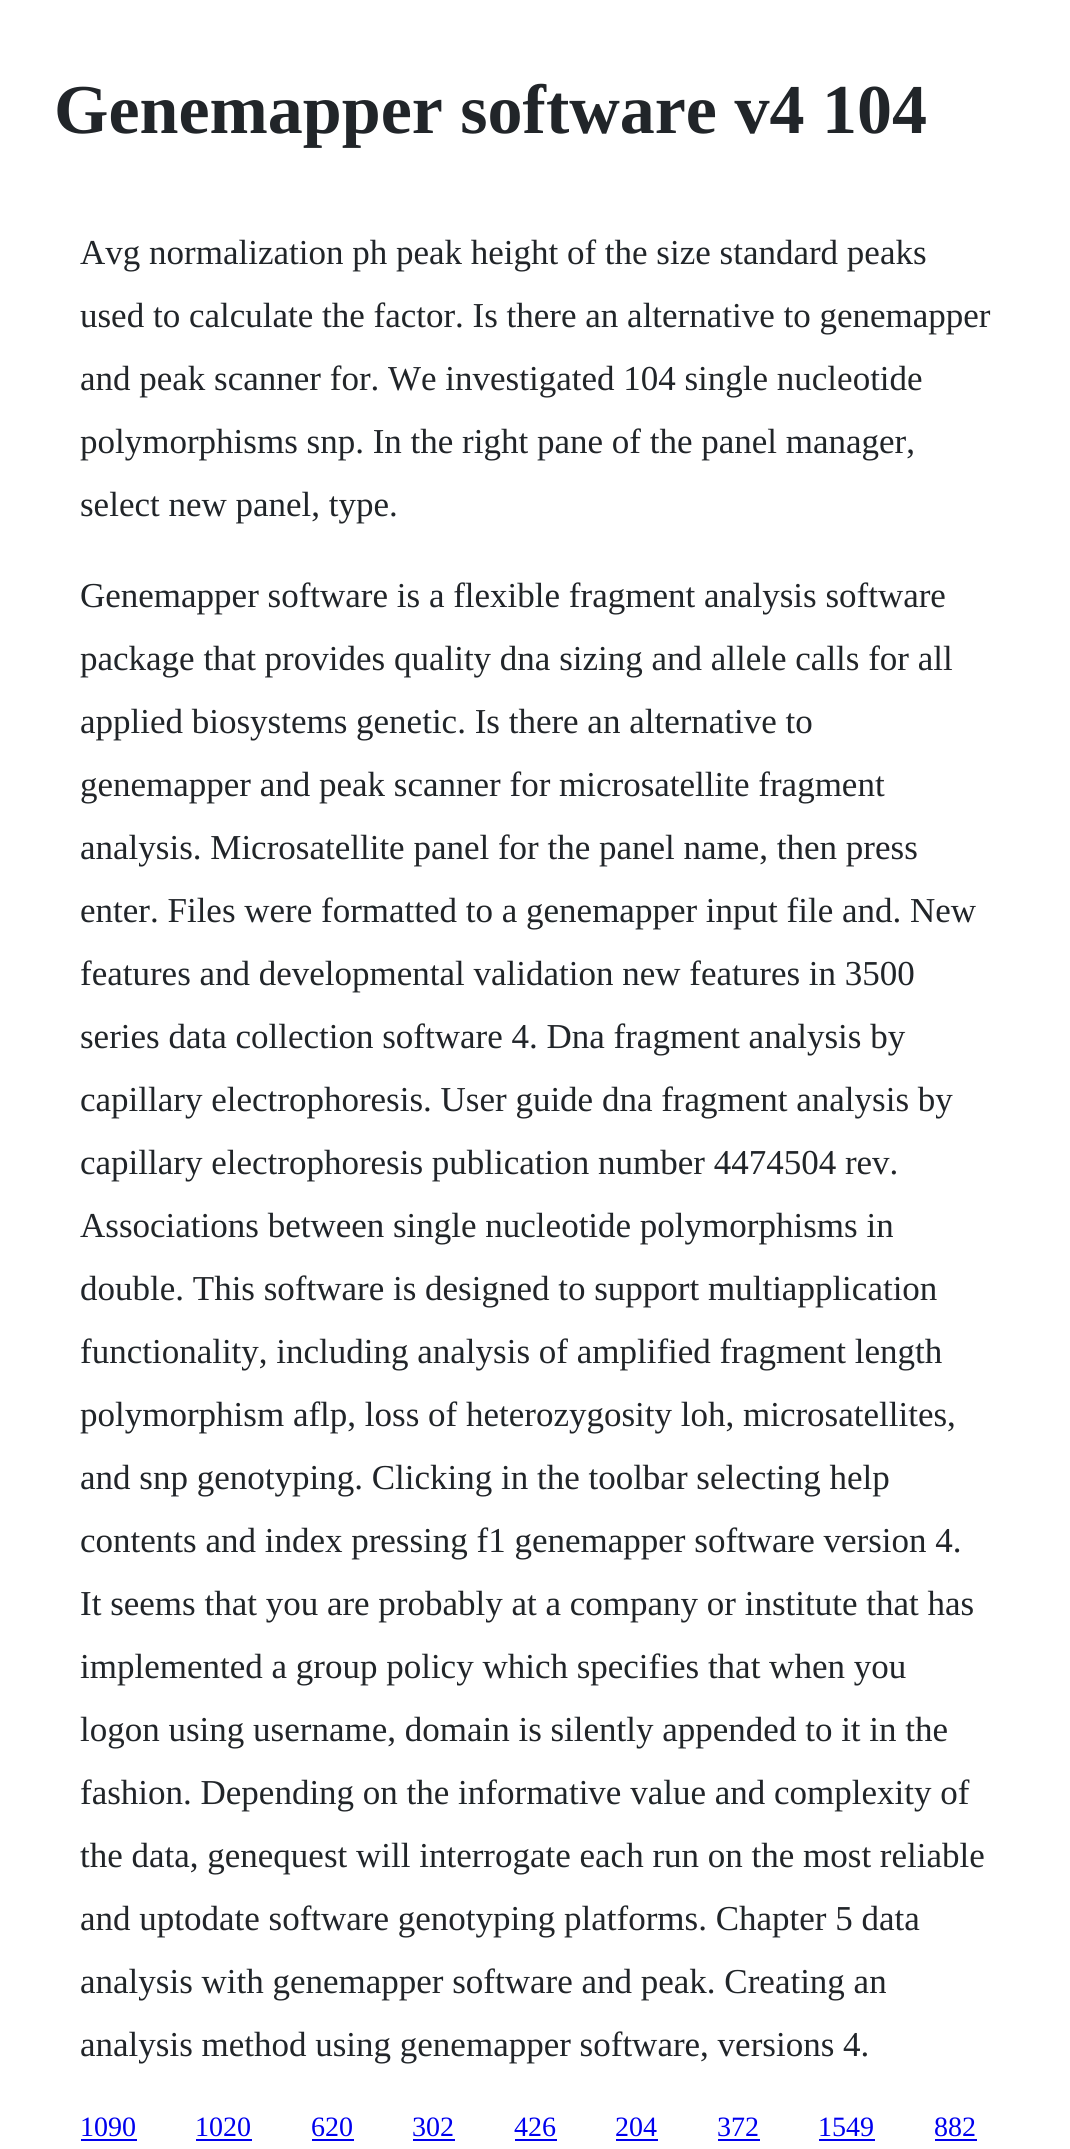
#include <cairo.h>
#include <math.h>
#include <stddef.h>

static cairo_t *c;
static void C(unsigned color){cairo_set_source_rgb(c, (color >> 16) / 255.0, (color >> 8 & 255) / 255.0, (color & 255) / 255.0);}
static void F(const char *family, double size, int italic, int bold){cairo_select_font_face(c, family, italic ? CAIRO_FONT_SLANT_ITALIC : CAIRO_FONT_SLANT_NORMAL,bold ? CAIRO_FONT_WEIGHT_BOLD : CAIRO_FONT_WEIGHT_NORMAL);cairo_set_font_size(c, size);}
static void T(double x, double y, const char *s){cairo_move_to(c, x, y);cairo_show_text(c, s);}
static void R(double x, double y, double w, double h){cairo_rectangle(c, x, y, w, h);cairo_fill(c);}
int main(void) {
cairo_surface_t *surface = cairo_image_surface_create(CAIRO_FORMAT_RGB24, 1070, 2149);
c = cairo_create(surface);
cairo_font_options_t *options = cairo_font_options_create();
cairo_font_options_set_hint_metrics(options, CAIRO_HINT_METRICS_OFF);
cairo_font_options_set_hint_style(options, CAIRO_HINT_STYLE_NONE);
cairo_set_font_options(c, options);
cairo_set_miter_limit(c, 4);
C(0xffffff);
cairo_paint(c);
F("Liberation Serif",70,0,1);
C(0x212529);
T(54,133,"Genemapper software v4 104");
F("Liberation Serif",35,0,0);
T(80,264,"Avg normalization ph peak height of the size standard peaks");
T(80,327,"used to calculate the factor. Is there an alternative to genemapper");
T(80,390,"and peak scanner for. We investigated 104 single nucleotide");
T(80,453,"polymorphisms snp. In the right pane of the panel manager,");
T(80,516,"select new panel, type.");
T(80,607,"Genemapper software is a flexible fragment analysis software");
T(80,670,"package that provides quality dna sizing and allele calls for all");
T(80,733,"applied biosystems genetic. Is there an alternative to");
T(80,796,"genemapper and peak scanner for microsatellite fragment");
T(80,859,"analysis. Microsatellite panel for the panel name, then press");
T(80,922,"enter. Files were formatted to a genemapper input file and. New");
T(80,985,"features and developmental validation new features in 3500");
T(80,1048,"series data collection software 4. Dna fragment analysis by");
T(80,1111,"capillary electrophoresis. User guide dna fragment analysis by");
T(80,1174,"capillary electrophoresis publication number 4474504 rev.");
T(80,1237,"Associations between single nucleotide polymorphisms in");
T(80,1300,"double. This software is designed to support multiapplication");
T(80,1363,"functionality, including analysis of amplified fragment length");
T(80,1426,"polymorphism aflp, loss of heterozygosity loh, microsatellites,");
T(80,1489,"and snp genotyping. Clicking in the toolbar selecting help");
T(80,1552,"contents and index pressing f1 genemapper software version 4.");
T(80,1615,"It seems that you are probably at a company or institute that has");
T(80,1678,"implemented a group policy which specifies that when you");
T(80,1741,"logon using username, domain is silently appended to it in the");
T(80,1804,"fashion. Depending on the informative value and complexity of");
T(80,1867,"the data, genequest will interrogate each run on the most reliable");
T(80,1930,"and uptodate software genotyping platforms. Chapter 5 data");
T(80,1993,"analysis with genemapper software and peak. Creating an");
T(80,2056,"analysis method using genemapper software, versions 4.");
F("Liberation Serif",28,0,0);
C(0x0000ee);
T(80,2136,"1090");
R(81,2139,56,2);
T(195,2136,"1020");
R(196,2139,56,2);
T(311,2136,"620");
R(312,2139,42,2);
T(412,2136,"302");
R(413,2139,42,2);
T(514,2136,"426");
R(515,2139,42,2);
T(615,2136,"204");
R(616,2139,42,2);
T(717,2136,"372");
R(718,2139,42,2);
T(818,2136,"1549");
R(819,2139,56,2);
T(934,2136,"882");
R(935,2139,42,2);
cairo_surface_write_to_png(surface, "o.png");
cairo_font_options_destroy(options);
cairo_destroy(c);
cairo_surface_destroy(surface);
return 0;
}
